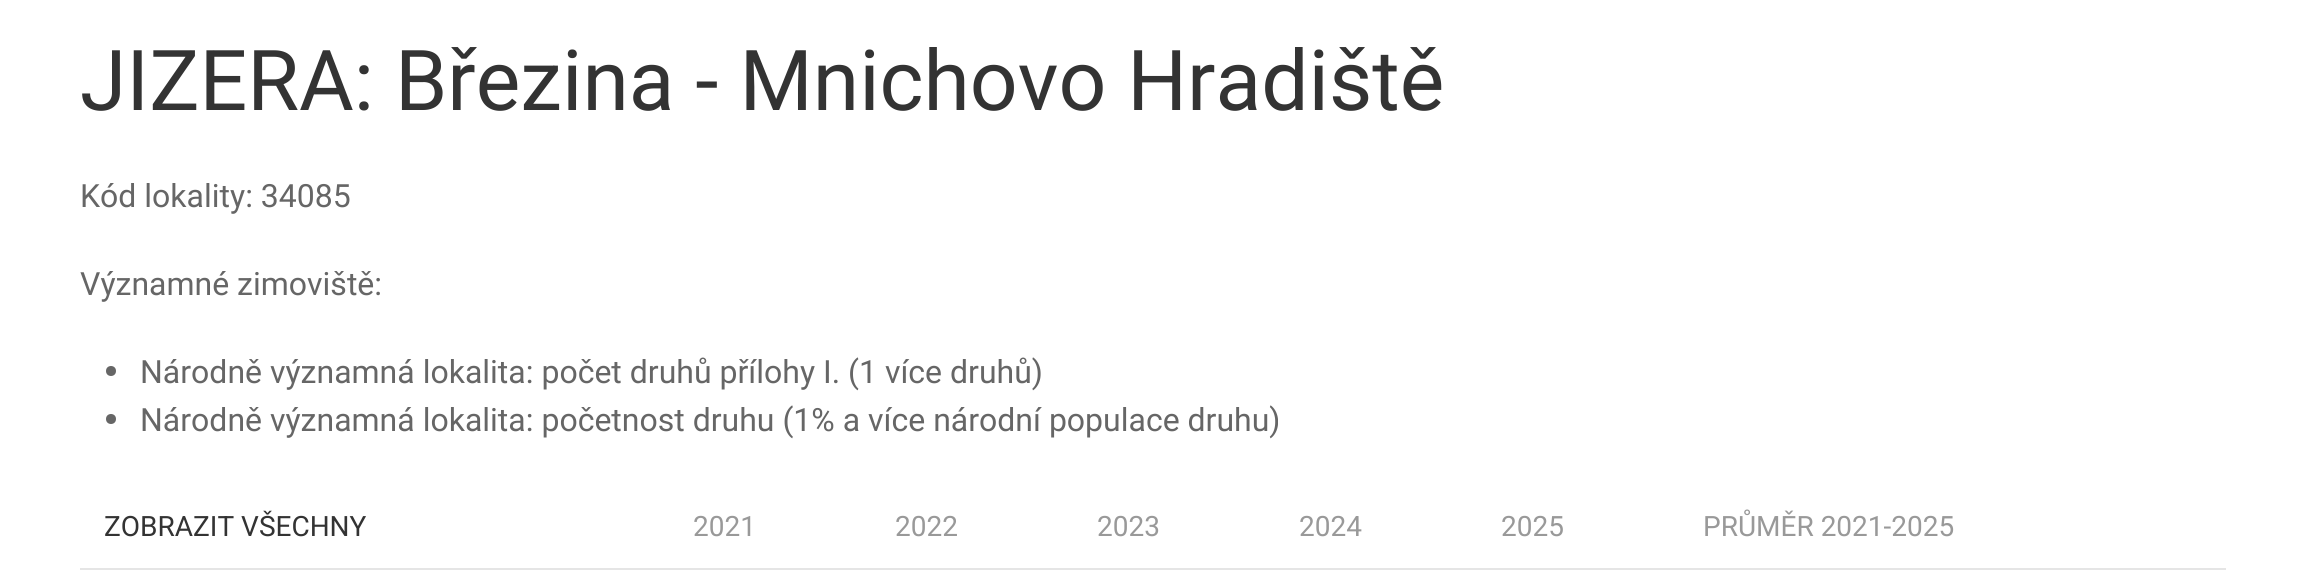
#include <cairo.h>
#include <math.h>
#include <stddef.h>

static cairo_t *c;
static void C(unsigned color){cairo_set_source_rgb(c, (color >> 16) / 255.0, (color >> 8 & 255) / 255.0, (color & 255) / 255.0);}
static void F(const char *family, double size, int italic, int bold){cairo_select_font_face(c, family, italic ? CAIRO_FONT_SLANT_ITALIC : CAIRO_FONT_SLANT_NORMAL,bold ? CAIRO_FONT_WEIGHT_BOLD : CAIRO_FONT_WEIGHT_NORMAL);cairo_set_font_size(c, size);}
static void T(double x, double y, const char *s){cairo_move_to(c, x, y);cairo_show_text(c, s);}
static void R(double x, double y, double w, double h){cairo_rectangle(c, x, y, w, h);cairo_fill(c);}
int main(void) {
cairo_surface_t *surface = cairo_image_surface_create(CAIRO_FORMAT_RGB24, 2303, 575);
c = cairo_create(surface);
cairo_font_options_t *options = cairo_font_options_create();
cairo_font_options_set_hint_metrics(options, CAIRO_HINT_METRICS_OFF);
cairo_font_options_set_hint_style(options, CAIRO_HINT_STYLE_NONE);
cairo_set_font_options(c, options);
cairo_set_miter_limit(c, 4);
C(0xffffff);
cairo_paint(c);
F("Roboto",84,0,0);
C(0x333333);
T(80,110,"JIZERA: Březina - Mnichovo Hradiště");
F("Roboto",32,0,0);
C(0x666666);
T(80,207,"Kód lokality: 34085");
T(80,295,"Významné zimoviště:");
cairo_new_path(c);
cairo_arc(c,111,371,5,0,2 * M_PI);
cairo_fill(c);
T(140,383,"Národně významná lokalita: počet druhů přílohy I. (1 více druhů)");
cairo_new_path(c);
cairo_arc(c,111,419,5,0,2 * M_PI);
cairo_fill(c);
T(140,431,"Národně významná lokalita: početnost druhu (1% a více národní populace druhu)");
F("Roboto",28,0,0);
C(0x333333);
T(104,536,"ZOBRAZIT VŠECHNY");
C(0x999999);
T(693,536,"2021");
T(895,536,"2022");
T(1097,536,"2023");
T(1299,536,"2024");
T(1501,536,"2025");
T(1703,536,"PRŮMĚR 2021-2025");
C(0xe5e5e5);
R(80,568,2146,2);
cairo_surface_write_to_png(surface, "o.png");
cairo_font_options_destroy(options);
cairo_destroy(c);
cairo_surface_destroy(surface);
return 0;
}
